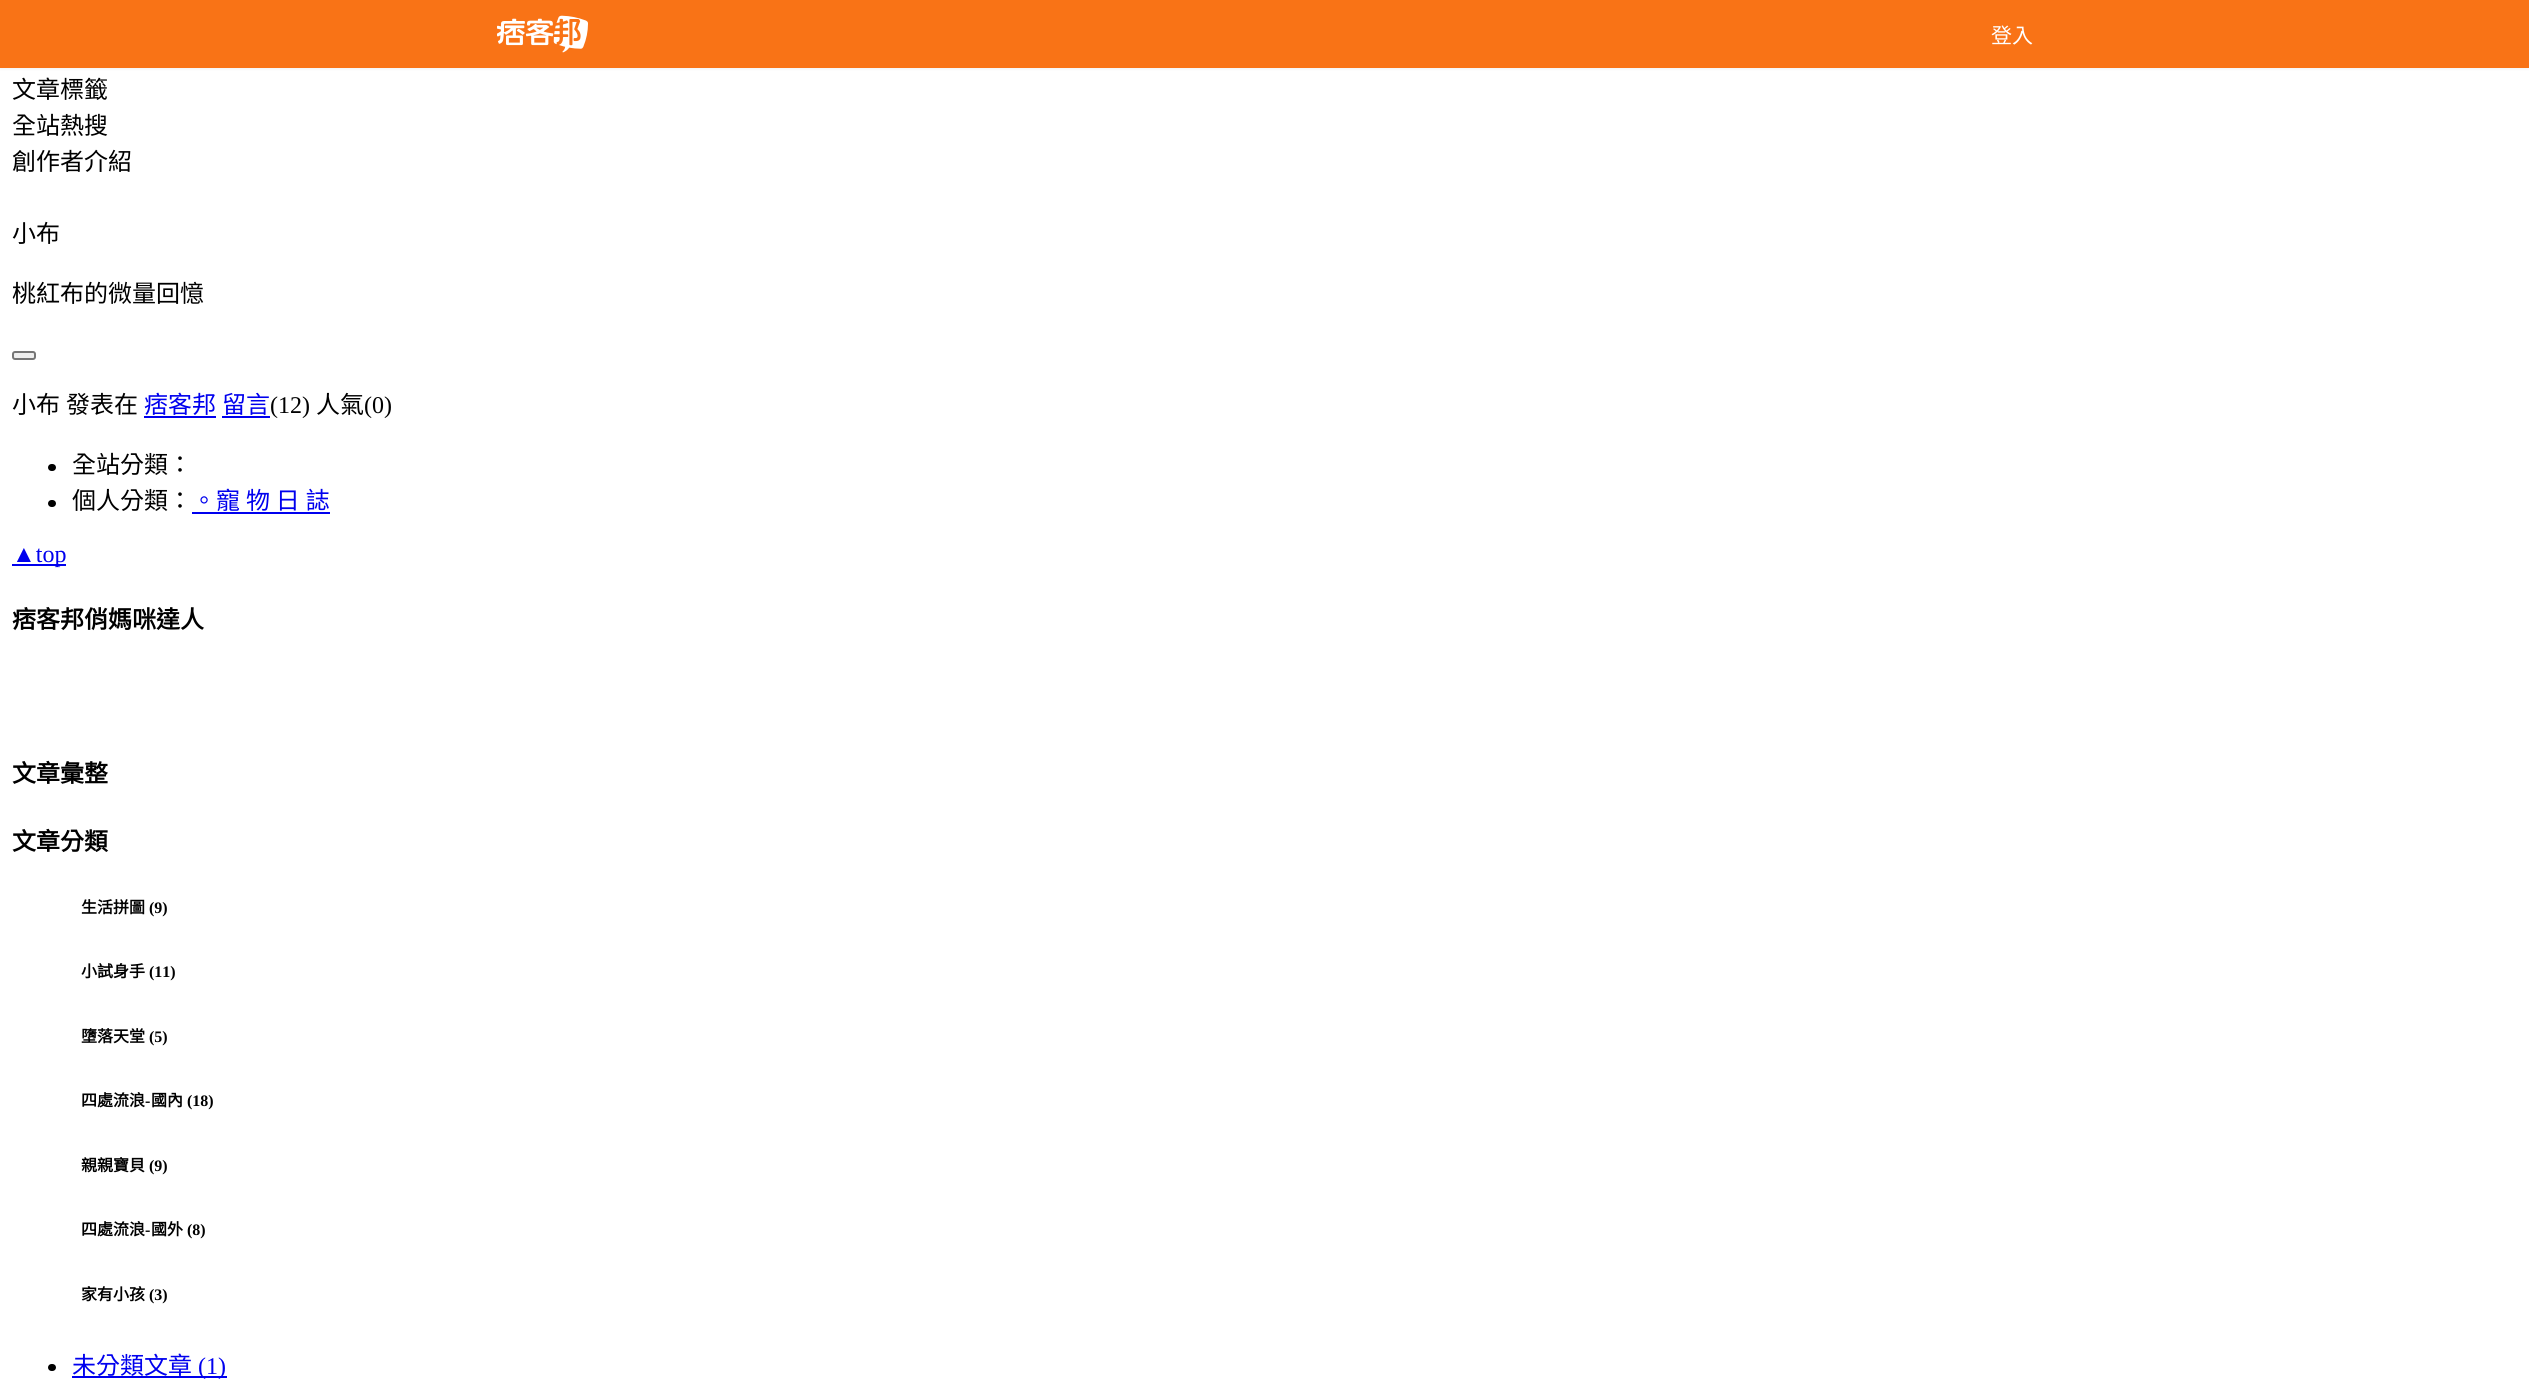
#include <cairo.h>
#include <math.h>
#include <stddef.h>

static cairo_t *c;
static void C(unsigned color){cairo_set_source_rgb(c, (color >> 16) / 255.0, (color >> 8 & 255) / 255.0, (color & 255) / 255.0);}
static void F(const char *family, double size, int italic, int bold){cairo_select_font_face(c, family, italic ? CAIRO_FONT_SLANT_ITALIC : CAIRO_FONT_SLANT_NORMAL,bold ? CAIRO_FONT_WEIGHT_BOLD : CAIRO_FONT_WEIGHT_NORMAL);cairo_set_font_size(c, size);}
static void T(double x, double y, const char *s){cairo_move_to(c, x, y);cairo_show_text(c, s);}
static void L(double x, double y, const char *s, double letter, double word){cairo_move_to(c, x, y);while (*s) {char ch[5] = {0};int n = 0;do ch[n++] = *s++; while ((*s & 0xC0) == 0x80);cairo_show_text(c, ch);cairo_rel_move_to(c, letter + word * (*ch == ' '), 0);}}
static void R(double x, double y, double w, double h){cairo_rectangle(c, x, y, w, h);cairo_fill(c);}
static void Q(double x, double y, double w, double h, double r){cairo_new_sub_path(c);cairo_arc(c, x + w - r, y + h - r, r, 0, M_PI / 2);cairo_arc(c, x + r, y + h - r, r, M_PI / 2, M_PI);cairo_arc(c, x + r, y + r, r, M_PI, 1.5 * M_PI);cairo_arc(c, x + w - r, y + r, r, 1.5 * M_PI, 2 * M_PI);cairo_close_path(c);}
static void S(double x, double y, double w, double h, double r, double blur, double alpha){cairo_push_group_with_content(c, CAIRO_CONTENT_ALPHA);cairo_set_operator(c, CAIRO_OPERATOR_SOURCE);for (int i = 15; i >= -15 && fmin(w, h) + blur * i / 3 > 0; i -= 2) {double e = blur * i / 6;cairo_set_source_rgba(c, 0, 0, 0, alpha * erfc((i - 1) / 8.5) / 2);Q(x - e, y - e, w + 2 * e, h + 2 * e, fmax(0, fmin(r + e + blur * .6, fmin(w, h) / 2 + e)));cairo_fill(c);}cairo_pattern_t *soft = cairo_pop_group(c);cairo_mask(c, soft);cairo_pattern_destroy(soft);}
static void I(const char *path, double x, double y, double w, double h){cairo_surface_t *image = cairo_image_surface_create_from_png(path);cairo_save(c);cairo_set_source_surface(c, image, x, y);cairo_rectangle(c, x, y, w, h);cairo_fill(c);cairo_restore(c);cairo_surface_destroy(image);}
int main(void) {
cairo_surface_t *surface = cairo_image_surface_create(CAIRO_FORMAT_RGB24, 2529, 1380);
c = cairo_create(surface);
cairo_font_options_t *options = cairo_font_options_create();
cairo_font_options_set_hint_metrics(options, CAIRO_HINT_METRICS_OFF);
cairo_font_options_set_hint_style(options, CAIRO_HINT_STYLE_NONE);
cairo_set_font_options(c, options);
cairo_set_miter_limit(c, 4);
C(0xffffff);
cairo_paint(c);
C(0x000000);
S(0,2,2529,67,0,1.5,.05);
C(0xf97316);
R(0,0,2529,68);
I("1.png",497,15,91,38);
F("Noto Sans CJK TC",21,0,0);
C(0xffffff);
T(1991,43,"登入");
F("Noto Sans CJK TC",24,0,0);
C(0x000000);
T(12,98,"文章標籤");
T(12,134,"全站熱搜");
T(12,170,"創作者介紹");
T(12,242,"小布");
T(12,302,"桃紅布的微量回憶");
C(0xefefef);
Q(13,352,22,7,2);
cairo_fill_preserve(c);
C(0x767676);
cairo_stroke(c);
C(0x000000);
T(12,413,"小布");
T(66,413,"發表在");
C(0x0000ee);
T(144,413,"痞客邦");
R(144,416,72,2);
T(222,413,"留言");
R(222,416,48,2);
F("Liberation Serif",24,0,0);
C(0x000000);
T(270,413,"(12)");
F("Noto Sans CJK TC",24,0,0);
T(316,413,"人氣");
F("Liberation Serif",24,0,0);
T(364,413,"(0)");
Q(48,464,8,7,3.5);
cairo_fill(c);
F("Noto Sans CJK TC",24,0,0);
T(72,473,"全站分類：");
Q(48,500,8,7,3.5);
cairo_fill(c);
T(72,509,"個人分類：");
C(0x0000ee);
L(192,509,"。寵 物 日 誌",0,.5);
R(192,512,138,2);
R(12,564,54,2);
F("Liberation Serif",24,0,0);
T(12,562,"▲top");
F("Noto Sans CJK TC",24,0,1);
C(0x000000);
T(12,628,"痞客邦俏媽咪達人");
T(12,782,"文章彙整");
T(12,850,"文章分類");
F("Noto Sans CJK TC",16,0,1);
T(81,913,"生活拼圖");
F("Liberation Serif",16,0,1);
T(149,913,"(9)");
F("Noto Sans CJK TC",16,0,1);
T(81,977,"小試身手");
F("Liberation Serif",16,0,1);
T(149,977,"(11)");
F("Noto Sans CJK TC",16,0,1);
T(81,1042,"墮落天堂");
F("Liberation Serif",16,0,1);
T(149,1042,"(5)");
F("Noto Sans CJK TC",16,0,1);
T(81,1106,"四處流浪");
F("Liberation Serif",16,0,1);
T(145,1106,"-");
F("Noto Sans CJK TC",16,0,1);
T(151,1106,"國內");
F("Liberation Serif",16,0,1);
T(187,1106,"(18)");
F("Noto Sans CJK TC",16,0,1);
T(81,1171,"親親寶貝");
F("Liberation Serif",16,0,1);
T(149,1171,"(9)");
F("Noto Sans CJK TC",16,0,1);
T(81,1235,"四處流浪");
F("Liberation Serif",16,0,1);
T(145,1235,"-");
F("Noto Sans CJK TC",16,0,1);
T(151,1235,"國外");
F("Liberation Serif",16,0,1);
T(187,1235,"(8)");
F("Noto Sans CJK TC",16,0,1);
T(81,1300,"家有小孩");
F("Liberation Serif",16,0,1);
T(149,1300,"(3)");
Q(48,1364,8,7,3.5);
cairo_fill(c);
F("Noto Sans CJK TC",24,0,0);
C(0x0000ee);
T(72,1374,"未分類文章");
R(72,1376,155,2);
F("Liberation Serif",24,0,0);
T(198,1374,"(1)");
cairo_surface_write_to_png(surface, "o.png");
cairo_font_options_destroy(options);
cairo_destroy(c);
cairo_surface_destroy(surface);
return 0;
}
